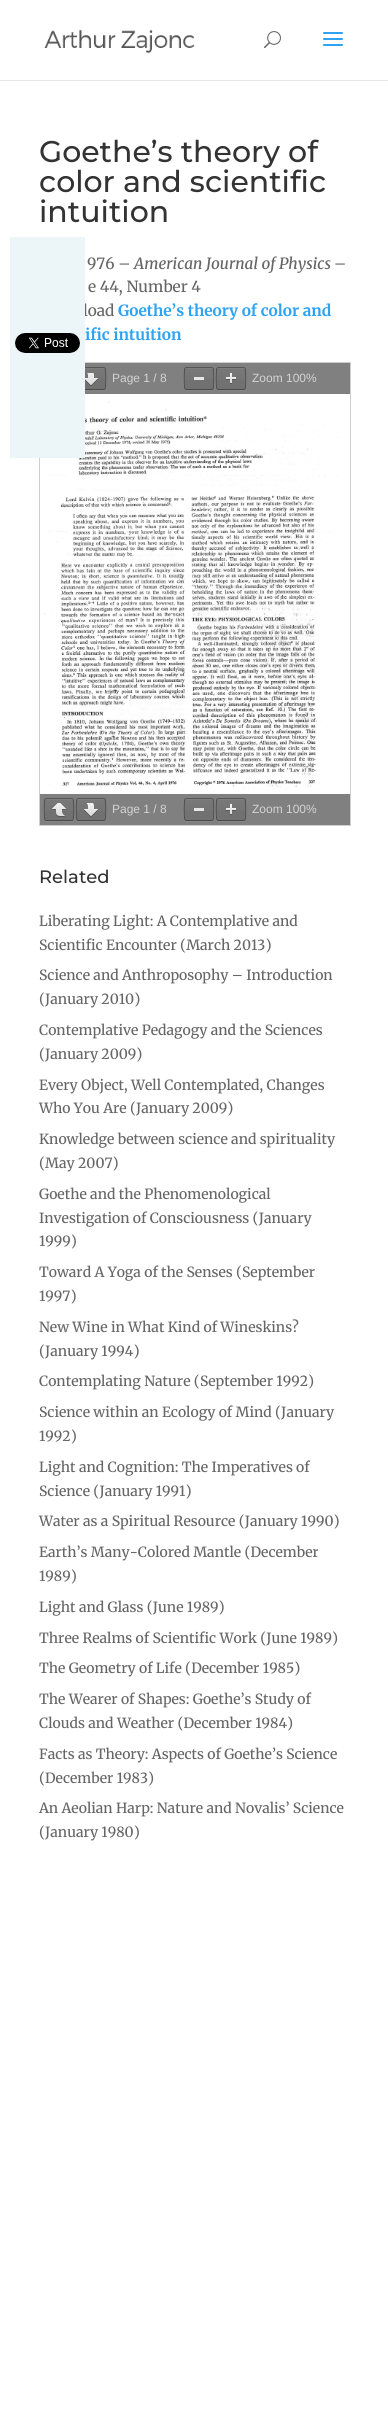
#include <cairo.h>
#include <math.h>
#include <stddef.h>

static cairo_t *c;
static void C(unsigned color){cairo_set_source_rgb(c, (color >> 16) / 255.0, (color >> 8 & 255) / 255.0, (color & 255) / 255.0);}
static void F(const char *family, double size, int italic, int bold){cairo_select_font_face(c, family, italic ? CAIRO_FONT_SLANT_ITALIC : CAIRO_FONT_SLANT_NORMAL,bold ? CAIRO_FONT_WEIGHT_BOLD : CAIRO_FONT_WEIGHT_NORMAL);cairo_set_font_size(c, size);}
static void T(double x, double y, const char *s){cairo_move_to(c, x, y);cairo_show_text(c, s);}
static void R(double x, double y, double w, double h){cairo_rectangle(c, x, y, w, h);cairo_fill(c);}
static void Q(double x, double y, double w, double h, double r){cairo_new_sub_path(c);cairo_arc(c, x + w - r, y + h - r, r, 0, M_PI / 2);cairo_arc(c, x + r, y + h - r, r, M_PI / 2, M_PI);cairo_arc(c, x + r, y + r, r, M_PI, 1.5 * M_PI);cairo_arc(c, x + w - r, y + r, r, 1.5 * M_PI, 2 * M_PI);cairo_close_path(c);}
static void I(const char *path, double x, double y, double w, double h){cairo_surface_t *image = cairo_image_surface_create_from_png(path);cairo_save(c);cairo_set_source_surface(c, image, x, y);cairo_rectangle(c, x, y, w, h);cairo_fill(c);cairo_restore(c);cairo_surface_destroy(image);}
int main(void) {
cairo_surface_t *surface = cairo_image_surface_create(CAIRO_FORMAT_RGB24, 388, 2415);
c = cairo_create(surface);
cairo_font_options_t *options = cairo_font_options_create();
cairo_font_options_set_hint_metrics(options, CAIRO_HINT_METRICS_OFF);
cairo_font_options_set_hint_style(options, CAIRO_HINT_STYLE_NONE);
cairo_set_font_options(c, options);
cairo_set_miter_limit(c, 4);
cairo_pattern_t *gradient;
C(0xffffff);
cairo_paint(c);
C(0xe6e6e6);
R(0,80,388,1);
I("1.png",44,29,151,24);
I("2.png",264,31,17,18);
I("3.png",323,32,20,14);
F("Montserrat Medium",30,0,0);
C(0x333333);
T(39,162,"Goethe’s theory of");
T(39,192,"color and scientific");
T(39,222,"intuition");
F("Merriweather Medium",15.4,0,0);
C(0x666666);
T(83,316,"load");
cairo_rectangle(c,39.5,362.5,311,463);
C(0xcecece);
cairo_set_line_width(c,1);
cairo_stroke(c);
C(0x808080);
R(85,363,265,31);
C(0x868686);
cairo_new_path(c);
cairo_move_to(c,76,388);
cairo_curve_to(c,76,392,78.5,391,82.5,391);
cairo_line_to(c,99.5,391);
cairo_curve_to(c,103.5,391,106,392,106,388);
cairo_curve_to(c,106,389,105,390,104,390);
cairo_line_to(c,78,390);
cairo_curve_to(c,77,390,76,389,76,388);
cairo_close_path(c);
cairo_fill(c);
C(0x717171);
Q(77,368,28,21,1);
cairo_fill(c);
gradient = cairo_pattern_create_linear(91,368,91,389);
cairo_pattern_add_color_stop_rgba(gradient,0,1,1,1,.05);
cairo_pattern_add_color_stop_rgba(gradient,1,1,1,1,0);
cairo_set_source(c,gradient);
cairo_pattern_destroy(gradient);
R(85,368,20,12);
C(0x7f7f7f);
cairo_new_path(c);
cairo_move_to(c,78,369);
cairo_line_to(c,105,369);
cairo_line_to(c,105,370);
cairo_curve_to(c,105,367,103,368,99.5,368);
cairo_line_to(c,82.5,368);
cairo_curve_to(c,79,368,77,367,77,370);
cairo_curve_to(c,77,369,77,369,78,369);
cairo_close_path(c);
cairo_fill(c);
cairo_new_path(c);
cairo_move_to(c,77,368);
cairo_line_to(c,78,367.5);
cairo_line_to(c,104,367.5);
cairo_line_to(c,105,368);
C(0x575757);
cairo_stroke(c);
cairo_new_path(c);
cairo_move_to(c,105,368);
cairo_curve_to(c,106,369,106,388,105,389);
C(0x4f4f4f);
cairo_stroke(c);
cairo_new_path(c);
cairo_move_to(c,105,389);
cairo_line_to(c,104,389.5);
cairo_line_to(c,78,389.5);
cairo_line_to(c,77,389);
C(0x4a4a4a);
cairo_stroke(c);
I("7.png",44,401,294,389);
C(0xecf6f9);
R(10,237,75,221);
I("4.png",15,333,65,20);
C(0x666666);
T(87,269,"976 –");
F("Merriweather Medium",15.4,1,0);
T(134,269,"American Journal of Physics");
F("Merriweather Medium",15.4,0,0);
T(334,269,"–");
T(88,292,"e 44, Number 4");
F("Merriweather",15.4,0,1);
C(0x2ea3f2);
T(118,316,"Goethe’s theory of color and");
T(85,340,"ific intuition");
I("5.png",85,373,13,13);
F("Liberation Sans",12,0,0);
C(0xd3d3d3);
T(112,382,"Page 1 / 8");
C(0x868686);
cairo_new_path(c);
cairo_move_to(c,184,388);
cairo_curve_to(c,184,392,186.5,391,190.5,391);
cairo_line_to(c,207.5,391);
cairo_curve_to(c,211.5,391,214,392,214,388);
cairo_curve_to(c,214,389,213,390,212,390);
cairo_line_to(c,186,390);
cairo_curve_to(c,185,390,184,389,184,388);
cairo_close_path(c);
cairo_fill(c);
C(0x717171);
Q(185,368,28,21,1);
cairo_fill(c);
gradient = cairo_pattern_create_linear(199,368,199,389);
cairo_pattern_add_color_stop_rgba(gradient,0,1,1,1,.05);
cairo_pattern_add_color_stop_rgba(gradient,1,1,1,1,0);
cairo_set_source(c,gradient);
cairo_pattern_destroy(gradient);
R(185,368,28,12);
C(0x7f7f7f);
cairo_new_path(c);
cairo_move_to(c,186,369);
cairo_line_to(c,213,369);
cairo_line_to(c,213,370);
cairo_curve_to(c,213,367,211,368,207.5,368);
cairo_line_to(c,190.5,368);
cairo_curve_to(c,187,368,185,367,185,370);
cairo_curve_to(c,185,369,185,369,186,369);
cairo_close_path(c);
cairo_fill(c);
cairo_new_path(c);
cairo_move_to(c,185,368);
cairo_line_to(c,186,367.5);
cairo_line_to(c,212,367.5);
cairo_line_to(c,213,368);
C(0x575757);
cairo_stroke(c);
cairo_new_path(c);
cairo_move_to(c,213,368);
cairo_curve_to(c,214,369,214,388,213,389);
C(0x4f4f4f);
cairo_stroke(c);
cairo_new_path(c);
cairo_move_to(c,213,389);
cairo_line_to(c,212,389.5);
cairo_line_to(c,186,389.5);
cairo_line_to(c,185,389);
C(0x4a4a4a);
cairo_stroke(c);
cairo_new_path(c);
cairo_move_to(c,185,389);
cairo_curve_to(c,184,388,184,369,185,368);
C(0x4f4f4f);
cairo_stroke(c);
C(0xe6e6e6);
R(194,377,10,3);
C(0x868686);
cairo_new_path(c);
cairo_move_to(c,216,388);
cairo_curve_to(c,216,392,218.5,391,222.5,391);
cairo_line_to(c,239.5,391);
cairo_curve_to(c,243.5,391,246,392,246,388);
cairo_curve_to(c,246,389,245,390,244,390);
cairo_line_to(c,218,390);
cairo_curve_to(c,217,390,216,389,216,388);
cairo_close_path(c);
cairo_fill(c);
C(0x717171);
Q(217,368,28,21,1);
cairo_fill(c);
gradient = cairo_pattern_create_linear(231,368,231,389);
cairo_pattern_add_color_stop_rgba(gradient,0,1,1,1,.05);
cairo_pattern_add_color_stop_rgba(gradient,1,1,1,1,0);
cairo_set_source(c,gradient);
cairo_pattern_destroy(gradient);
R(217,368,28,12);
C(0x7f7f7f);
cairo_new_path(c);
cairo_move_to(c,218,369);
cairo_line_to(c,245,369);
cairo_line_to(c,245,370);
cairo_curve_to(c,245,367,243,368,239.5,368);
cairo_line_to(c,222.5,368);
cairo_curve_to(c,219,368,217,367,217,370);
cairo_curve_to(c,217,369,217,369,218,369);
cairo_close_path(c);
cairo_fill(c);
cairo_new_path(c);
cairo_move_to(c,217,368);
cairo_line_to(c,218,367.5);
cairo_line_to(c,244,367.5);
cairo_line_to(c,245,368);
C(0x575757);
cairo_stroke(c);
cairo_new_path(c);
cairo_move_to(c,245,368);
cairo_curve_to(c,246,369,246,388,245,389);
C(0x4f4f4f);
cairo_stroke(c);
cairo_new_path(c);
cairo_move_to(c,245,389);
cairo_line_to(c,244,389.5);
cairo_line_to(c,218,389.5);
cairo_line_to(c,217,389);
C(0x4a4a4a);
cairo_stroke(c);
cairo_new_path(c);
cairo_move_to(c,217,389);
cairo_curve_to(c,216,388,216,369,217,368);
C(0x4f4f4f);
cairo_stroke(c);
I("6.png",226,373,10,11);
C(0xd3d3d3);
T(252,382,"Zoom 100%");
C(0x808080);
R(40,794,310,31);
C(0x868686);
cairo_new_path(c);
cairo_move_to(c,44,819);
cairo_curve_to(c,44,823,46.5,822,50.5,822);
cairo_line_to(c,67.5,822);
cairo_curve_to(c,71.5,822,74,823,74,819);
cairo_curve_to(c,74,820,73,821,72,821);
cairo_line_to(c,46,821);
cairo_curve_to(c,45,821,44,820,44,819);
cairo_close_path(c);
cairo_fill(c);
C(0x717171);
Q(45,799,28,21,1);
cairo_fill(c);
gradient = cairo_pattern_create_linear(59,799,59,820);
cairo_pattern_add_color_stop_rgba(gradient,0,1,1,1,.05);
cairo_pattern_add_color_stop_rgba(gradient,1,1,1,1,0);
cairo_set_source(c,gradient);
cairo_pattern_destroy(gradient);
R(45,799,28,12);
C(0x7f7f7f);
cairo_new_path(c);
cairo_move_to(c,46,800);
cairo_line_to(c,73,800);
cairo_line_to(c,73,801);
cairo_curve_to(c,73,798,71,799,67.5,799);
cairo_line_to(c,50.5,799);
cairo_curve_to(c,47,799,45,798,45,801);
cairo_curve_to(c,45,800,45,800,46,800);
cairo_close_path(c);
cairo_fill(c);
cairo_new_path(c);
cairo_move_to(c,45,799);
cairo_line_to(c,46,798.5);
cairo_line_to(c,72,798.5);
cairo_line_to(c,73,799);
C(0x575757);
cairo_stroke(c);
cairo_new_path(c);
cairo_move_to(c,73,799);
cairo_curve_to(c,74,800,74,819,73,820);
C(0x4f4f4f);
cairo_stroke(c);
cairo_new_path(c);
cairo_move_to(c,73,820);
cairo_line_to(c,72,820.5);
cairo_line_to(c,46,820.5);
cairo_line_to(c,45,820);
C(0x4a4a4a);
cairo_stroke(c);
cairo_new_path(c);
cairo_move_to(c,45,820);
cairo_curve_to(c,44,819,44,800,45,799);
C(0x4f4f4f);
cairo_stroke(c);
I("8.png",52,803,14,14);
C(0x868686);
cairo_new_path(c);
cairo_move_to(c,76,819);
cairo_curve_to(c,76,823,78.5,822,82.5,822);
cairo_line_to(c,99.5,822);
cairo_curve_to(c,103.5,822,106,823,106,819);
cairo_curve_to(c,106,820,105,821,104,821);
cairo_line_to(c,78,821);
cairo_curve_to(c,77,821,76,820,76,819);
cairo_close_path(c);
cairo_fill(c);
C(0x717171);
Q(77,799,28,21,1);
cairo_fill(c);
gradient = cairo_pattern_create_linear(91,799,91,820);
cairo_pattern_add_color_stop_rgba(gradient,0,1,1,1,.05);
cairo_pattern_add_color_stop_rgba(gradient,1,1,1,1,0);
cairo_set_source(c,gradient);
cairo_pattern_destroy(gradient);
R(77,799,28,12);
C(0x7f7f7f);
cairo_new_path(c);
cairo_move_to(c,78,800);
cairo_line_to(c,105,800);
cairo_line_to(c,105,801);
cairo_curve_to(c,105,798,103,799,99.5,799);
cairo_line_to(c,82.5,799);
cairo_curve_to(c,79,799,77,798,77,801);
cairo_curve_to(c,77,800,77,800,78,800);
cairo_close_path(c);
cairo_fill(c);
cairo_new_path(c);
cairo_move_to(c,77,799);
cairo_line_to(c,78,798.5);
cairo_line_to(c,104,798.5);
cairo_line_to(c,105,799);
C(0x575757);
cairo_stroke(c);
cairo_new_path(c);
cairo_move_to(c,105,799);
cairo_curve_to(c,106,800,106,819,105,820);
C(0x4f4f4f);
cairo_stroke(c);
cairo_new_path(c);
cairo_move_to(c,105,820);
cairo_line_to(c,104,820.5);
cairo_line_to(c,78,820.5);
cairo_line_to(c,77,820);
C(0x4a4a4a);
cairo_stroke(c);
cairo_new_path(c);
cairo_move_to(c,77,820);
cairo_curve_to(c,76,819,76,800,77,799);
C(0x4f4f4f);
cairo_stroke(c);
I("9.png",84,803,14,14);
C(0xd3d3d3);
T(112,813,"Page 1 / 8");
C(0x868686);
cairo_new_path(c);
cairo_move_to(c,184,819);
cairo_curve_to(c,184,823,186.5,822,190.5,822);
cairo_line_to(c,207.5,822);
cairo_curve_to(c,211.5,822,214,823,214,819);
cairo_curve_to(c,214,820,213,821,212,821);
cairo_line_to(c,186,821);
cairo_curve_to(c,185,821,184,820,184,819);
cairo_close_path(c);
cairo_fill(c);
C(0x717171);
Q(185,799,28,21,1);
cairo_fill(c);
gradient = cairo_pattern_create_linear(199,799,199,820);
cairo_pattern_add_color_stop_rgba(gradient,0,1,1,1,.05);
cairo_pattern_add_color_stop_rgba(gradient,1,1,1,1,0);
cairo_set_source(c,gradient);
cairo_pattern_destroy(gradient);
R(185,799,28,12);
C(0x7f7f7f);
cairo_new_path(c);
cairo_move_to(c,186,800);
cairo_line_to(c,213,800);
cairo_line_to(c,213,801);
cairo_curve_to(c,213,798,211,799,207.5,799);
cairo_line_to(c,190.5,799);
cairo_curve_to(c,187,799,185,798,185,801);
cairo_curve_to(c,185,800,185,800,186,800);
cairo_close_path(c);
cairo_fill(c);
cairo_new_path(c);
cairo_move_to(c,185,799);
cairo_line_to(c,186,798.5);
cairo_line_to(c,212,798.5);
cairo_line_to(c,213,799);
C(0x575757);
cairo_stroke(c);
cairo_new_path(c);
cairo_move_to(c,213,799);
cairo_curve_to(c,214,800,214,819,213,820);
C(0x4f4f4f);
cairo_stroke(c);
cairo_new_path(c);
cairo_move_to(c,213,820);
cairo_line_to(c,212,820.5);
cairo_line_to(c,186,820.5);
cairo_line_to(c,185,820);
C(0x4a4a4a);
cairo_stroke(c);
cairo_new_path(c);
cairo_move_to(c,185,820);
cairo_curve_to(c,184,819,184,800,185,799);
C(0x4f4f4f);
cairo_stroke(c);
C(0xe6e6e6);
R(194,808,10,3);
C(0x868686);
cairo_new_path(c);
cairo_move_to(c,216,819);
cairo_curve_to(c,216,823,218.5,822,222.5,822);
cairo_line_to(c,239.5,822);
cairo_curve_to(c,243.5,822,246,823,246,819);
cairo_curve_to(c,246,820,245,821,244,821);
cairo_line_to(c,218,821);
cairo_curve_to(c,217,821,216,820,216,819);
cairo_close_path(c);
cairo_fill(c);
C(0x717171);
Q(217,799,28,21,1);
cairo_fill(c);
gradient = cairo_pattern_create_linear(231,799,231,820);
cairo_pattern_add_color_stop_rgba(gradient,0,1,1,1,.05);
cairo_pattern_add_color_stop_rgba(gradient,1,1,1,1,0);
cairo_set_source(c,gradient);
cairo_pattern_destroy(gradient);
R(217,799,28,12);
C(0x7f7f7f);
cairo_new_path(c);
cairo_move_to(c,218,800);
cairo_line_to(c,245,800);
cairo_line_to(c,245,801);
cairo_curve_to(c,245,798,243,799,239.5,799);
cairo_line_to(c,222.5,799);
cairo_curve_to(c,219,799,217,798,217,801);
cairo_curve_to(c,217,800,217,800,218,800);
cairo_close_path(c);
cairo_fill(c);
cairo_new_path(c);
cairo_move_to(c,217,799);
cairo_line_to(c,218,798.5);
cairo_line_to(c,244,798.5);
cairo_line_to(c,245,799);
C(0x575757);
cairo_stroke(c);
cairo_new_path(c);
cairo_move_to(c,245,799);
cairo_curve_to(c,246,800,246,819,245,820);
C(0x4f4f4f);
cairo_stroke(c);
cairo_new_path(c);
cairo_move_to(c,245,820);
cairo_line_to(c,244,820.5);
cairo_line_to(c,218,820.5);
cairo_line_to(c,217,820);
C(0x4a4a4a);
cairo_stroke(c);
cairo_new_path(c);
cairo_move_to(c,217,820);
cairo_curve_to(c,216,819,216,800,217,799);
C(0x4f4f4f);
cairo_stroke(c);
I("6.png",226,804,10,11);
C(0xd3d3d3);
T(252,813,"Zoom 100%");
F("Montserrat Medium",18,0,0);
C(0x333333);
T(39,883,"Related");
F("Merriweather Medium",14,0,0);
C(0x666666);
T(39,926,"Liberating Light: A Contemplative and");
T(39,950,"Scientific Encounter (March 2013)");
T(39,980,"Science and Anthroposophy – Introduction");
T(39,1004,"(January 2010)");
T(39,1035,"Contemplative Pedagogy and the Sciences");
T(39,1059,"(January 2009)");
T(39,1090,"Every Object, Well Contemplated, Changes");
T(39,1113,"Who You Are (January 2009)");
T(39,1144,"Knowledge between science and spirituality");
T(39,1168,"(May 2007)");
T(39,1199,"Goethe and the Phenomenological");
T(39,1223,"Investigation of Consciousness (January");
T(39,1246,"1999)");
T(39,1277,"Toward A Yoga of the Senses (September");
T(39,1301,"1997)");
T(39,1332,"New Wine in What Kind of Wineskins?");
T(39,1356,"(January 1994)");
T(39,1386,"Contemplating Nature (September 1992)");
T(39,1417,"Science within an Ecology of Mind (January");
T(39,1441,"1992)");
T(39,1472,"Light and Cognition: The Imperatives of");
T(39,1496,"Science (January 1991)");
T(39,1526,"Water as a Spiritual Resource (January 1990)");
T(39,1557,"Earth’s Many-Colored Mantle (December");
T(39,1581,"1989)");
T(39,1612,"Light and Glass (June 1989)");
T(39,1643,"Three Realms of Scientific Work (June 1989)");
T(39,1673,"The Geometry of Life (December 1985)");
T(39,1704,"The Wearer of Shapes: Goethe’s Study of");
T(39,1728,"Clouds and Weather (December 1984)");
T(39,1759,"Facts as Theory: Aspects of Goethe’s Science");
T(39,1783,"(December 1983)");
T(39,1813,"An Aeolian Harp: Nature and Novalis’ Science");
T(39,1837,"(January 1980)");
cairo_surface_write_to_png(surface, "o.png");
cairo_font_options_destroy(options);
cairo_destroy(c);
cairo_surface_destroy(surface);
return 0;
}
